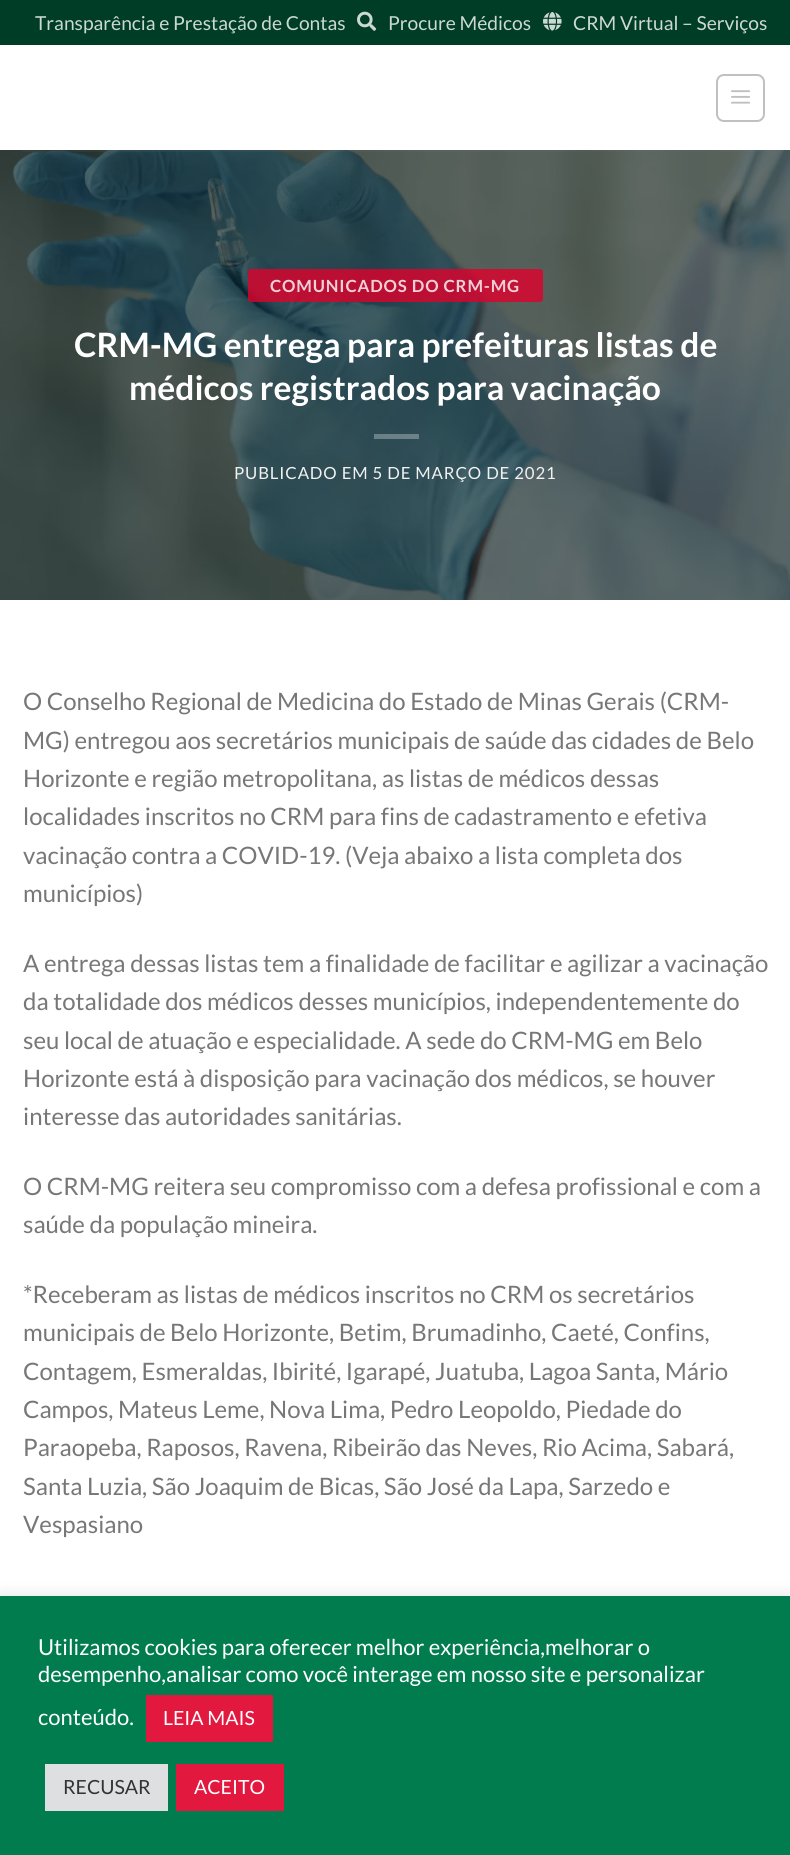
#include <cairo.h>
#include <math.h>
#include <stddef.h>

static cairo_t *c;
static void C(unsigned color){cairo_set_source_rgb(c, (color >> 16) / 255.0, (color >> 8 & 255) / 255.0, (color & 255) / 255.0);}
static void F(const char *family, double size, int italic, int bold){cairo_select_font_face(c, family, italic ? CAIRO_FONT_SLANT_ITALIC : CAIRO_FONT_SLANT_NORMAL,bold ? CAIRO_FONT_WEIGHT_BOLD : CAIRO_FONT_WEIGHT_NORMAL);cairo_set_font_size(c, size);}
static void T(double x, double y, const char *s){cairo_move_to(c, x, y);cairo_show_text(c, s);}
static void L(double x, double y, const char *s, double letter, double word){cairo_move_to(c, x, y);while (*s) {char ch[5] = {0};int n = 0;do ch[n++] = *s++; while ((*s & 0xC0) == 0x80);cairo_show_text(c, ch);cairo_rel_move_to(c, letter + word * (*ch == ' '), 0);}}
static void R(double x, double y, double w, double h){cairo_rectangle(c, x, y, w, h);cairo_fill(c);}
static void Q(double x, double y, double w, double h, double r){cairo_new_sub_path(c);cairo_arc(c, x + w - r, y + h - r, r, 0, M_PI / 2);cairo_arc(c, x + r, y + h - r, r, M_PI / 2, M_PI);cairo_arc(c, x + r, y + r, r, M_PI, 1.5 * M_PI);cairo_arc(c, x + w - r, y + r, r, 1.5 * M_PI, 2 * M_PI);cairo_close_path(c);}
static void S(double x, double y, double w, double h, double r, double blur, double alpha){cairo_push_group_with_content(c, CAIRO_CONTENT_ALPHA);cairo_set_operator(c, CAIRO_OPERATOR_SOURCE);for (int i = 15; i >= -15 && fmin(w, h) + blur * i / 3 > 0; i -= 2) {double e = blur * i / 6;cairo_set_source_rgba(c, 0, 0, 0, alpha * erfc((i - 1) / 8.5) / 2);Q(x - e, y - e, w + 2 * e, h + 2 * e, fmax(0, fmin(r + e + blur * .6, fmin(w, h) / 2 + e)));cairo_fill(c);}cairo_pattern_t *soft = cairo_pop_group(c);cairo_mask(c, soft);cairo_pattern_destroy(soft);}
static void I(const char *path, double x, double y, double w, double h){cairo_surface_t *image = cairo_image_surface_create_from_png(path);cairo_save(c);cairo_set_source_surface(c, image, x, y);cairo_rectangle(c, x, y, w, h);cairo_fill(c);cairo_restore(c);cairo_surface_destroy(image);}
int main(void) {
cairo_surface_t *surface = cairo_image_surface_create(CAIRO_FORMAT_RGB24, 790, 1855);
c = cairo_create(surface);
cairo_font_options_t *options = cairo_font_options_create();
cairo_font_options_set_hint_metrics(options, CAIRO_HINT_METRICS_OFF);
cairo_font_options_set_hint_style(options, CAIRO_HINT_STYLE_NONE);
cairo_set_font_options(c, options);
cairo_set_miter_limit(c, 4);
C(0xffffff);
cairo_paint(c);
C(0x003d27);
R(0,0,790,45);
F("Lato",19.25,0,0);
C(0xccd8d4);
T(35,30,"Transparência e Prestação de Contas");
I("1.png",357,11,20,20);
T(388,30,"Procure Médicos");
I("2.png",543,12,19,19);
T(573,30,"CRM Virtual – Serviços");
Q(717,75,47,46,7);
C(0xc0c0c0);
cairo_stroke(c);
I("3.png",731,90,20,14);
I("4.png",0,150,790,450);
cairo_set_source_rgba(c,0.467,0.467,0.467,0.1);
R(23,150,745,2);
cairo_set_source_rgba(c,0.875,0,0.173,0.8);
Q(248,269,295,33,3);
cairo_fill(c);
F("Lato",16.75,0,1);
C(0xf1cfd6);
L(270,292,"COMUNICADOS DO CRM-MG",.85,0);
F("Lato",33.6,0,1);
C(0xffffff);
T(74,357,"CRM-MG entrega para prefeituras listas de");
T(129,400,"médicos registrados para vacinação");
cairo_set_source_rgba(c,1,1,1,0.3);
R(374,434,45,5);
F("Lato",16.75,0,0);
C(0xf1f1f1);
L(234,479,"PUBLICADO EM 5 DE MARÇO DE 2021",.85,0);
F("Lato",24,0,0);
C(0x777777);
T(23,710,"O Conselho Regional de Medicina do Estado de Minas Gerais (CRM-");
T(23,749,"MG) entregou aos secretários municipais de saúde das cidades de Belo");
T(23,787,"Horizonte e região metropolitana, as listas de médicos dessas");
T(23,825,"localidades inscritos no CRM para fins de cadastramento e efetiva");
T(23,864,"vacinação contra a COVID-19. (Veja abaixo a lista completa dos");
T(23,902,"municípios)");
T(23,972,"A entrega dessas listas tem a finalidade de facilitar e agilizar a vacinação");
T(23,1010,"da totalidade dos médicos desses municípios, independentemente do");
T(23,1049,"seu local de atuação e especialidade. A sede do CRM-MG em Belo");
T(23,1087,"Horizonte está à disposição para vacinação dos médicos, se houver");
T(23,1125,"interesse das autoridades sanitárias.");
T(23,1195,"O CRM-MG reitera seu compromisso com a defesa profissional e com a");
T(23,1233,"saúde da população mineira.");
T(23,1303,"*Receberam as listas de médicos inscritos no CRM os secretários");
T(23,1341,"municipais de Belo Horizonte, Betim, Brumadinho, Caeté, Confins,");
T(23,1380,"Contagem, Esmeraldas, Ibirité, Igarapé, Juatuba, Lagoa Santa, Mário");
T(23,1418,"Campos, Mateus Leme, Nova Lima, Pedro Leopoldo, Piedade do");
T(23,1456,"Paraopeba, Raposos, Ravena, Ribeirão das Neves, Rio Acima, Sabará,");
T(23,1495,"Santa Luzia, São Joaquim de Bicas, São José da Lapa, Sarzedo e");
T(23,1533,"Vespasiano");
C(0xacabab);
S(0,1595,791,259,0,7.5,.3);
C(0x007c4f);
R(0,1596,790,259);
F("Lato",22,0,0);
C(0xffffff);
T(38,1655,"Utilizamos cookies para oferecer melhor experiência,melhorar o");
T(38,1682,"desempenho,analisar como você interage em nosso site e personalizar");
T(38,1725,"conteúdo.");
C(0xe2183f);
R(146,1695,127,47);
F("Lato",19.5,0,0);
C(0xffffff);
T(163,1725,"LEIA MAIS");
C(0xdedfe0);
R(45,1764,123,47);
C(0x333333);
T(63,1794,"RECUSAR");
C(0xe2183f);
R(176,1764,108,47);
C(0xffffff);
T(194,1794,"ACEITO");
cairo_surface_write_to_png(surface, "o.png");
cairo_font_options_destroy(options);
cairo_destroy(c);
cairo_surface_destroy(surface);
return 0;
}
